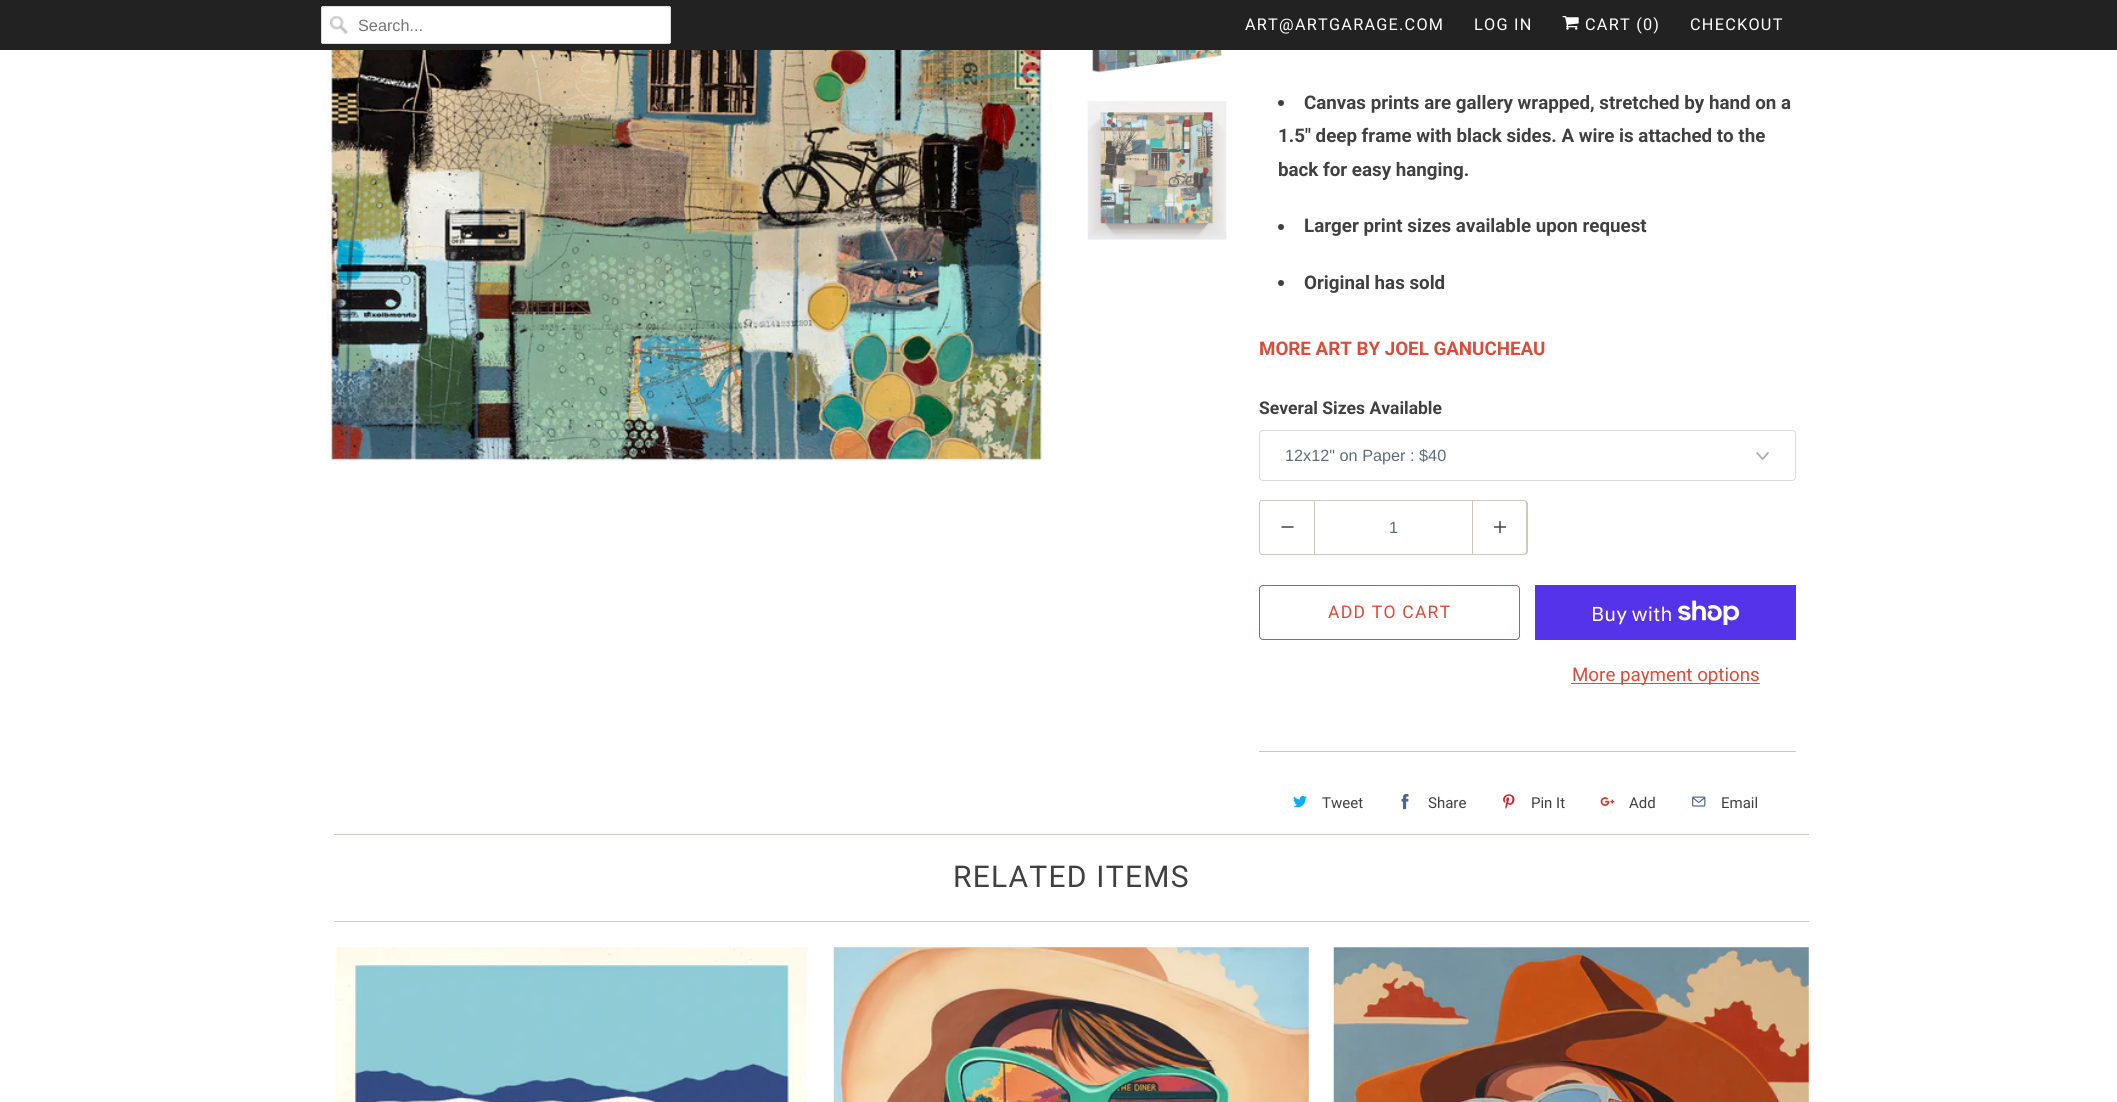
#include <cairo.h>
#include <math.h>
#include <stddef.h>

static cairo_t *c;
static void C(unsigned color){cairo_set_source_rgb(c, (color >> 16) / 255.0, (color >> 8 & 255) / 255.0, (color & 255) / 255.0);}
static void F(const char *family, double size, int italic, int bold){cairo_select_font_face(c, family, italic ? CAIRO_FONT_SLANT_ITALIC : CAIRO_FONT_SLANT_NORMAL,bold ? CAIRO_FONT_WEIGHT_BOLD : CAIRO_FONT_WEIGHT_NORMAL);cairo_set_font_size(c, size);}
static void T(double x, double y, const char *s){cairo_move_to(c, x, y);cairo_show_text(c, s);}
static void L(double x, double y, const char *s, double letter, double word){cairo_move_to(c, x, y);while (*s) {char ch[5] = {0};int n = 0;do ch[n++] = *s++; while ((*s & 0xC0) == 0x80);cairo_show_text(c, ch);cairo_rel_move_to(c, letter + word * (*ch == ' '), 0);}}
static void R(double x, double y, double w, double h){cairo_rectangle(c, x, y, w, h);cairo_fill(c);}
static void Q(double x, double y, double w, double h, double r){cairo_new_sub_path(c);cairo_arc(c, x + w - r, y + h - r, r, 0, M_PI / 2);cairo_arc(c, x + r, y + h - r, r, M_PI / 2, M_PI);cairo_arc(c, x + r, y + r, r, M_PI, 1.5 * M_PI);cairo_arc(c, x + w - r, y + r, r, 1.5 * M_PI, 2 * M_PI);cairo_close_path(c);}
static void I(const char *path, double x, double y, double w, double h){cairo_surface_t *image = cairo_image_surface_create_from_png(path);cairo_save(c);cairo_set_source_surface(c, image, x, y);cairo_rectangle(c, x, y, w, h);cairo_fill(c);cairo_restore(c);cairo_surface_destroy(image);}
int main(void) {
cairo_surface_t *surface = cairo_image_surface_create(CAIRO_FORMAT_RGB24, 2117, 1102);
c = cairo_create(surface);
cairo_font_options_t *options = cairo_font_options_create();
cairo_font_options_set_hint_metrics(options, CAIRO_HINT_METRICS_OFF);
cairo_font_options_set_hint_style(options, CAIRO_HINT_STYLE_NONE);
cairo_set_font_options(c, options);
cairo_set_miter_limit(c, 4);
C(0xffffff);
cairo_paint(c);
C(0x222222);
R(0,0,2117,50);
C(0xffffff);
Q(321,6,350,38,2.5);
cairo_fill(c);
I("1.png",330,16,18,18);
Q(321.5,6.5,349,37,2);
C(0xdfdfdf);
cairo_set_line_width(c,1);
cairo_stroke(c);
F("Liberation Sans",16.25,0,0);
C(0x757575);
T(358,31,"Search...");
F("Roboto",16.25,0,0);
C(0xffffff);
L(1245,30,"ART@ARTGARAGE.COM",1.25,0);
L(1474,30,"LOG IN",1.25,0);
I("2.png",1562,16,17,14);
L(1585,30,"CART (0)",1.25,0);
L(1690,30,"CHECKOUT",1.25,0);
I("3.png",327,50,716,411);
I("4.png",1092,50,131,23);
I("5.png",1087,101,140,139);
C(0x404040);
cairo_arc(c,1281,103,3,0,2 * M_PI);
cairo_fill(c);
F("Roboto",18.75,0,1);
T(1304,109,"Canvas prints are gallery wrapped, stretched by hand on a");
T(1278,142,"1.5\" deep frame with black sides. A wire is attached to the");
T(1278,176,"back for easy hanging.");
cairo_new_path(c);
cairo_arc(c,1281,227,3,0,2 * M_PI);
cairo_fill(c);
T(1304,232,"Larger print sizes available upon request");
cairo_new_path(c);
cairo_arc(c,1281,283,3,0,2 * M_PI);
cairo_fill(c);
T(1304,289,"Original has sold");
C(0xdd4b39);
T(1259,355,"MORE ART BY JOEL GANUCHEAU");
F("Roboto",17.5,0,1);
C(0x404040);
T(1259,414,"Several Sizes Available");
I("6.png",1756,452,13,8);
Q(1259.5,430.5,536,50,3.5);
C(0xd9dbdc);
cairo_stroke(c);
F("Liberation Sans",16.25,0,0);
C(0x5f6a7d);
T(1285,461,"12x12\" on Paper : $40");
C(0xcec6bf);
cairo_set_fill_rule(c,CAIRO_FILL_RULE_EVEN_ODD);
cairo_new_path(c);
cairo_move_to(c,1262,500);
cairo_line_to(c,1314,500);
cairo_line_to(c,1314,555);
cairo_line_to(c,1262,555);
cairo_curve_to(c,1260,555,1259,553,1259,551);
cairo_line_to(c,1259,504);
cairo_curve_to(c,1259,502,1260,500,1262,500);
cairo_close_path(c);
cairo_move_to(c,1262,501);
cairo_line_to(c,1314,501);
cairo_line_to(c,1314,554);
cairo_line_to(c,1262,554);
cairo_curve_to(c,1261,554,1260,553,1260,551);
cairo_line_to(c,1260,504);
cairo_curve_to(c,1260,502,1261,501,1262,501);
cairo_close_path(c);
cairo_fill(c);
I("7.png",1281,526,13,2);
cairo_rectangle(c,1314.5,500.5,158,54);
cairo_stroke(c);
C(0x5f6a7d);
T(1389,533,"1");
C(0xcec6bf);
cairo_new_path(c);
cairo_move_to(c,1472,500);
cairo_line_to(c,1524,500);
cairo_curve_to(c,1526,500,1528,502,1528,504);
cairo_line_to(c,1528,551);
cairo_curve_to(c,1528,553,1526,555,1524,555);
cairo_line_to(c,1472,555);
cairo_close_path(c);
cairo_move_to(c,1472,501);
cairo_line_to(c,1524,501);
cairo_curve_to(c,1525,501,1526,502,1526,504);
cairo_line_to(c,1526,551);
cairo_curve_to(c,1526,553,1525,554,1524,554);
cairo_line_to(c,1472,554);
cairo_close_path(c);
cairo_fill(c);
I("8.png",1493,520,14,14);
Q(1259.5,585.5,260,54,3.5);
C(0xdd4b39);
cairo_stroke(c);
F("Roboto",17.5,0,0);
L(1328,618,"ADD TO CART",1.25,0);
C(0x5433eb);
R(1535,585,261,55);
F("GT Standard",20,0,0);
C(0xffffff);
T(1591,621,"Buy with");
I("9.png",1678,600,62,25);
C(0xdd4b39);
R(1571,683,189,1);
F("Roboto",18.75,0,0);
T(1572,681,"More payment options");
C(0xcec6bf);
R(1259,751,537,1);
I("10.png",1293,795,14,13);
F("Roboto",15,0,0);
C(0x404040);
T(1322,808,"Tweet");
I("11.png",1401,794,8,16);
T(1428,808,"Share");
I("12.png",1503,794,12,15);
T(1531,808,"Pin It");
I("13.png",1600,797,15,9);
T(1629,808,"Add");
I("14.png",1692,796,14,11);
T(1721,808,"Email");
C(0xcec6bf);
R(334,834,1475,1);
R(334,921,1475,1);
F("Roboto",30,0,0);
C(0x404040);
L(953,887,"RELATED ITEMS",1.25,0);
I("15.png",335,947,473,155);
I("16.png",833,947,476,155);
I("17.png",1333,947,476,155);
cairo_surface_write_to_png(surface, "o.png");
cairo_font_options_destroy(options);
cairo_destroy(c);
cairo_surface_destroy(surface);
return 0;
}
